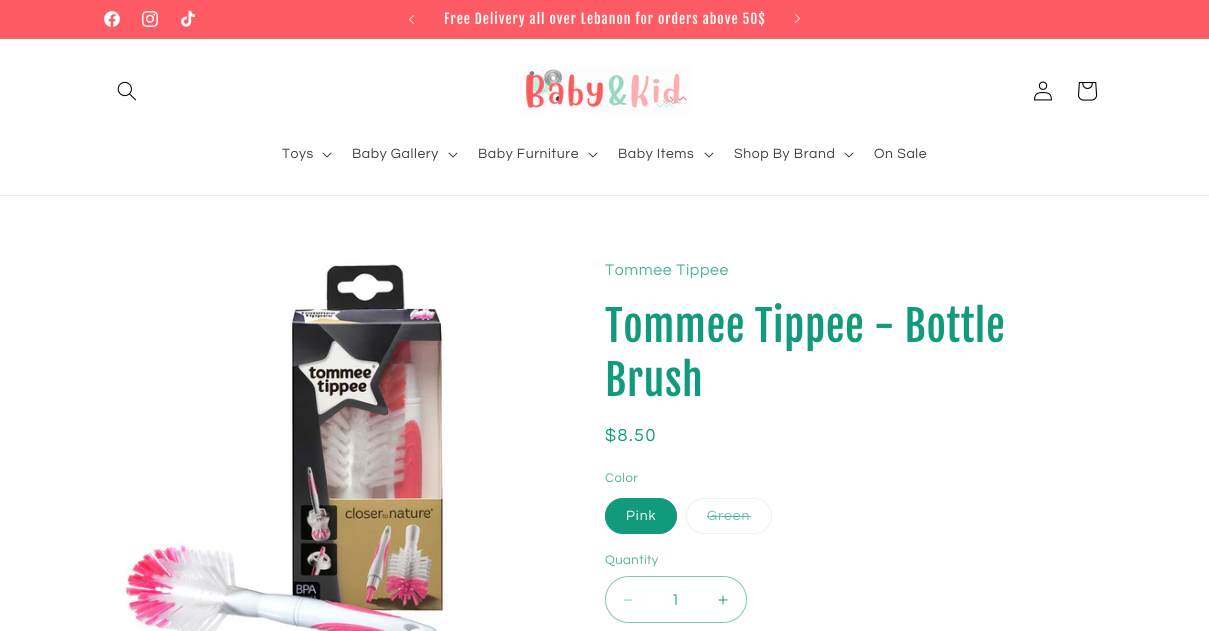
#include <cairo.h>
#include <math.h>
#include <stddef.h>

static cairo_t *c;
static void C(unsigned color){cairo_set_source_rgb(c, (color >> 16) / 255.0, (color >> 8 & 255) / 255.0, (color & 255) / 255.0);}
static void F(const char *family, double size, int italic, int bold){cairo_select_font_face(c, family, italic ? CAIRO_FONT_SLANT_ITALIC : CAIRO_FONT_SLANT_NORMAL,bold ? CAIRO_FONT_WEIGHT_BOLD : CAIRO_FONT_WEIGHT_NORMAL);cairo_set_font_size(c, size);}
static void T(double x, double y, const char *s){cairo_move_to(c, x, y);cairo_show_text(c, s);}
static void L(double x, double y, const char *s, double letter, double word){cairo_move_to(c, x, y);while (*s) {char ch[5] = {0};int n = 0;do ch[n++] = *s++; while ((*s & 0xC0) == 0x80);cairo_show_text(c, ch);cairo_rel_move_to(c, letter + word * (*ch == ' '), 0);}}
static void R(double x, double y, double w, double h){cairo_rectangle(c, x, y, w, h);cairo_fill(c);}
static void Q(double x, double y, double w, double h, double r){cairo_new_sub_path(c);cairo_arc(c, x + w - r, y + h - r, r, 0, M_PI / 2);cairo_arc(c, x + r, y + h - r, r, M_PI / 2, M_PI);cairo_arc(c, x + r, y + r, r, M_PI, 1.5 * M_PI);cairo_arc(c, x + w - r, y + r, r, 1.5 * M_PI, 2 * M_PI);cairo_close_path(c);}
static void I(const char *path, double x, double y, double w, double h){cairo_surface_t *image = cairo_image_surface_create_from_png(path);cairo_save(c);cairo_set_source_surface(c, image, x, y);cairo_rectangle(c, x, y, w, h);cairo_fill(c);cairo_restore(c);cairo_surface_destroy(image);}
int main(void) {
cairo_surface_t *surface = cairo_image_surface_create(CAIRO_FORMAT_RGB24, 1209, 631);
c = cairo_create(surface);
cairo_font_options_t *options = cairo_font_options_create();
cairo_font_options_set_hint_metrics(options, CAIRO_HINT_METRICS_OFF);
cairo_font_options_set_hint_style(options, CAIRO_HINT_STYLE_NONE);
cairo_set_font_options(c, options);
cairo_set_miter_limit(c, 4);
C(0xffffff);
cairo_paint(c);
C(0xff5b65);
R(0,0,1209,38);
C(0xff6871);
R(0,38,1209,1);
I("1.png",104,11,16,16);
I("2.png",142,11,16,16);
I("3.png",181,10,14,17);
I("4.png",409,15,5,9);
F("Fjalla One",13.65,0,0);
C(0xffffff);
L(444,24,"Free Delivery all over Lebanon for orders above 50$",1,0);
I("5.png",795,14,5,9);
C(0xebebeb);
R(0,195,1209,1);
I("6.png",117,81,19,20);
I("7.png",523,67,168,48);
I("8.png",1034,81,18,20);
I("9.png",1078,82,20,19);
F("Questrial",14,0,0);
C(0x404040);
L(282,158,"Toys",.6,0);
I("10.png",322,152,10,6);
L(352,158,"Baby Gallery",.6,0);
I("10.png",448,152,10,6);
L(478,158,"Baby Furniture",.6,0);
I("10.png",588,152,10,6);
L(618,158,"Baby Items",.6,0);
I("10.png",704,152,10,6);
L(734,158,"Shop By Brand",.6,0);
I("10.png",844,152,10,6);
L(874,158,"On Sale",.6,0);
I("11.png",123,263,322,368);
F("Questrial",16,0,0);
C(0x4db39e);
L(605,275,"Tommee Tippee",.6,0);
F("Fjalla One",42,0,0);
C(0x129a7d);
L(605,342,"Tommee Tippee - Bottle",.6,0);
L(605,396,"Brush",.6,0);
F("Questrial",18,0,0);
L(605,441,"$8.50",1.5,0);
F("Questrial",13,0,0);
C(0x4db39e);
L(605,482,"Color",.5,0);
C(0x129a7d);
Q(605,498,72,36,18);
cairo_fill(c);
Q(605.5,498.5,71,35,17.5);
cairo_set_source_rgba(c,0.071,0.604,0.49,0.55);
cairo_set_line_width(c,1);
cairo_stroke(c);
F("Questrial",14,0,0);
C(0xffffff);
L(626,520,"Pink",1,0);
Q(686.5,498.5,85,35,17.5);
C(0xe7f5f2);
cairo_stroke(c);
C(0x71c2b1);
L(707,520,"Green",1,0);
cairo_set_source_rgba(c,0.071,0.604,0.49,0.6);
R(707,516,44,1);
F("Questrial",13,0,0);
C(0x4db39e);
L(605,564,"Quantity",.5,0);
I("12.png",623,599,10,2);
I("13.png",718,595,10,10);
Q(605.5,576.5,141,46,23);
C(0x7dc7b8);
cairo_stroke(c);
F("Questrial",16,0,0);
C(0x36a991);
T(671,605,"1");
cairo_surface_write_to_png(surface, "o.png");
cairo_font_options_destroy(options);
cairo_destroy(c);
cairo_surface_destroy(surface);
return 0;
}
